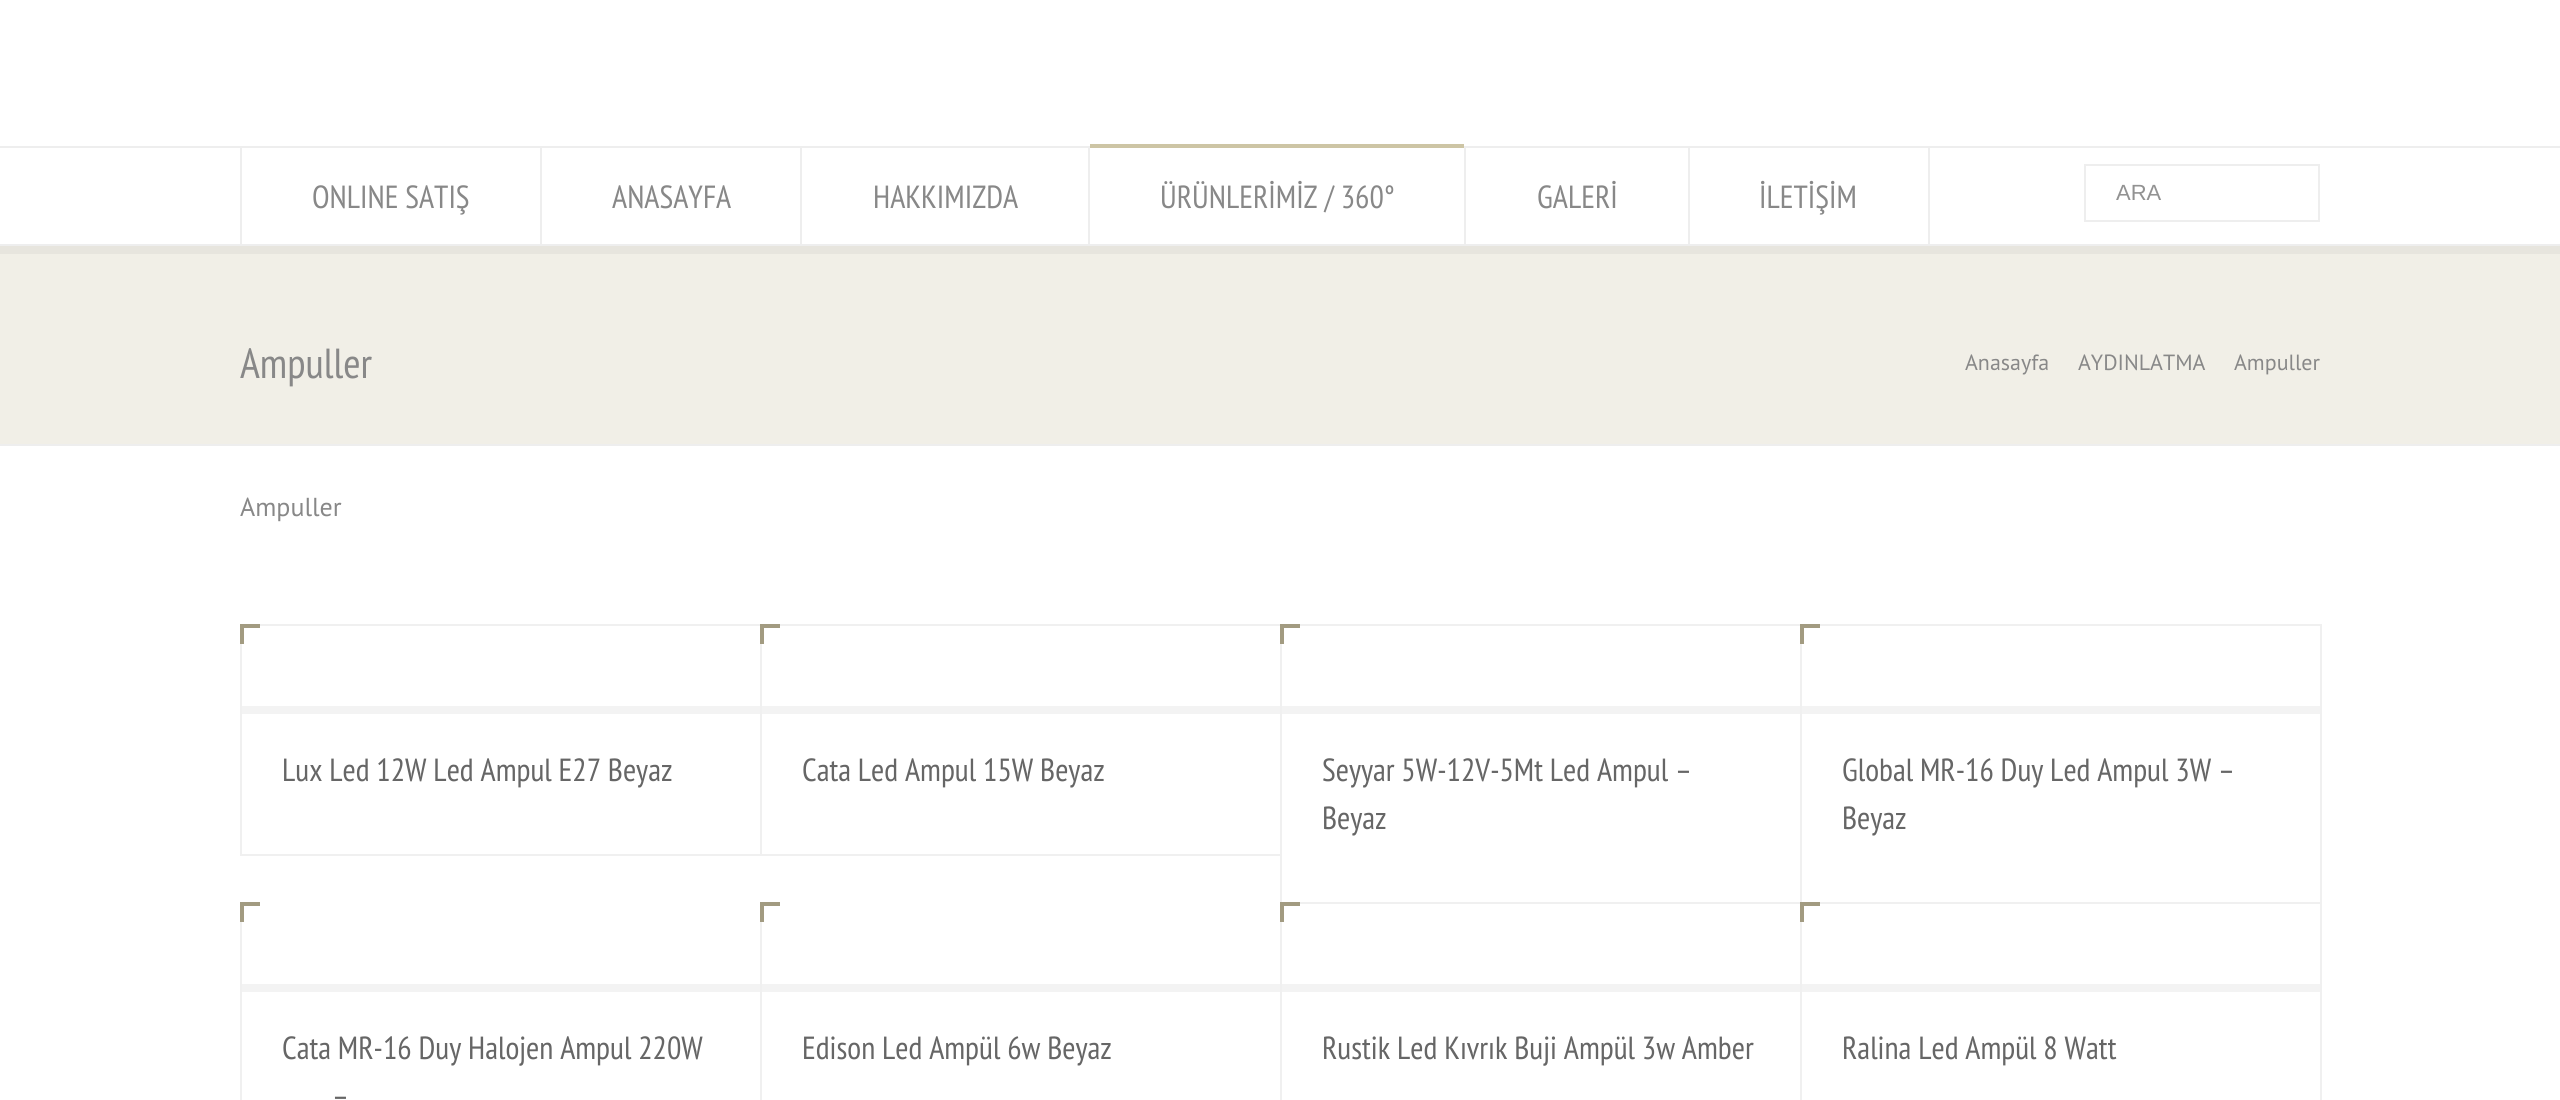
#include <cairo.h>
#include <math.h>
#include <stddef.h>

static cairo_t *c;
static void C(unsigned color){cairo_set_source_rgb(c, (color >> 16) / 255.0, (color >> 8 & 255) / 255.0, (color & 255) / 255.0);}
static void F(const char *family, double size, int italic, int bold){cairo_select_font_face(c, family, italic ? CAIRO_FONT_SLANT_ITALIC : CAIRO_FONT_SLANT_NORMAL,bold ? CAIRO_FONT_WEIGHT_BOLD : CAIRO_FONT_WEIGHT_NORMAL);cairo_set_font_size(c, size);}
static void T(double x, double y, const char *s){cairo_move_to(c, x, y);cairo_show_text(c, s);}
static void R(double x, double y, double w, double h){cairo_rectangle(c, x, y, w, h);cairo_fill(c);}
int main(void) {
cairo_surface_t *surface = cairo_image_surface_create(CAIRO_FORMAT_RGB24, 2560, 1100);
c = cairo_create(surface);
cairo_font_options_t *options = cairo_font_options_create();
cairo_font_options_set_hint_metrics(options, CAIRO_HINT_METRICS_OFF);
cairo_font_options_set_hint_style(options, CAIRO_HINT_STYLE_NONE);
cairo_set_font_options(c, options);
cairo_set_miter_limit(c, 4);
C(0xffffff);
cairo_paint(c);
C(0xe7e5de);
R(0,246,2560,8);
C(0xeeeeee);
R(0,146,2560,2);
R(0,244,2560,2);
R(540,148,2,96);
R(240,148,2,96);
F("PT Sans Narrow",32,0,0);
C(0x888888);
T(312,208,"ONLINE SATIŞ");
C(0xeeeeee);
R(800,148,2,96);
C(0x888888);
T(612,208,"ANASAYFA");
C(0xeeeeee);
R(1088,148,2,96);
C(0x888888);
T(873,208,"HAKKIMIZDA");
C(0xeeeeee);
R(1464,148,2,96);
C(0xcdc5a5);
R(1090,144,374,4);
C(0x888888);
T(1160,208,"ÜRÜNLERİMİZ / 360°");
C(0xeeeeee);
R(1688,148,2,96);
C(0x888888);
T(1537,208,"GALERİ");
C(0xeeeeee);
R(1928,148,2,96);
C(0x888888);
T(1759,208,"İLETİŞİM");
cairo_rectangle(c,2085,165,234,56);
C(0xeeeeee);
cairo_stroke(c);
F("Liberation Sans",22,0,0);
C(0x929292);
T(2116,200,"ARA");
C(0xf1efe7);
R(0,254,2560,190);
C(0xeeeeee);
R(0,444,2560,2);
F("PT Sans Narrow",42,0,0);
C(0x888888);
T(240,378,"Ampuller");
F("PT Sans",22,0,0);
T(1965,370,"Anasayfa");
T(2078,370,"AYDINLATMA");
T(2234,370,"Ampuller");
F("PT Sans",26,0,0);
T(240,516,"Ampuller");
C(0xf0f0f0);
R(260,624,500,2);
R(240,854,1040,2);
R(240,644,2,212);
C(0xa29b81);
R(240,624,4,20);
R(240,624,20,4);
C(0xf3f3f3);
R(242,706,518,8);
F("PT Sans Narrow",32,0,0);
C(0x666666);
T(282,781,"Lux Led 12W Led Ampul E27 Beyaz");
C(0xf0f0f0);
R(780,624,500,2);
R(760,644,2,212);
C(0xa29b81);
R(760,624,4,20);
R(760,624,20,4);
C(0xf3f3f3);
R(762,706,518,8);
C(0x666666);
T(802,781,"Cata Led Ampul 15W Beyaz");
C(0xf0f0f0);
R(1300,624,500,2);
R(1300,902,500,2);
R(1280,644,2,260);
C(0xa29b81);
R(1280,624,4,20);
R(1280,624,20,4);
C(0xf3f3f3);
R(1282,706,518,8);
C(0x666666);
T(1322,781,"Seyyar 5W-12V-5Mt Led Ampul –");
T(1322,829,"Beyaz");
C(0xf0f0f0);
R(2320,624,2,476);
R(1820,624,500,2);
R(1820,902,500,2);
R(1800,644,2,260);
C(0xa29b81);
R(1800,624,4,20);
R(1800,624,20,4);
C(0xf3f3f3);
R(1802,706,518,8);
C(0x666666);
T(1842,781,"Global MR-16 Duy Led Ampul 3W –");
T(1842,829,"Beyaz");
C(0xf0f0f0);
R(240,922,2,178);
C(0xa29b81);
R(240,902,4,20);
R(240,902,20,4);
C(0xf3f3f3);
R(242,984,518,8);
C(0x666666);
T(282,1059,"Cata MR-16 Duy Halojen Ampul 220W");
T(332,1107,"–");
C(0xf0f0f0);
R(760,922,2,178);
C(0xa29b81);
R(760,902,4,20);
R(760,902,20,4);
C(0xf3f3f3);
R(762,984,518,8);
C(0x666666);
T(802,1059,"Edison Led Ampül 6w Beyaz");
C(0xf0f0f0);
R(1280,922,2,178);
C(0xa29b81);
R(1280,902,4,20);
R(1280,902,20,4);
C(0xf3f3f3);
R(1282,984,518,8);
C(0x666666);
T(1322,1059,"Rustik Led Kıvrık Buji Ampül 3w Amber");
C(0xf0f0f0);
R(1800,922,2,178);
C(0xa29b81);
R(1800,902,4,20);
R(1800,902,20,4);
C(0xf3f3f3);
R(1802,984,518,8);
C(0x666666);
T(1842,1059,"Ralina Led Ampül 8 Watt");
cairo_surface_write_to_png(surface, "o.png");
cairo_font_options_destroy(options);
cairo_destroy(c);
cairo_surface_destroy(surface);
return 0;
}
